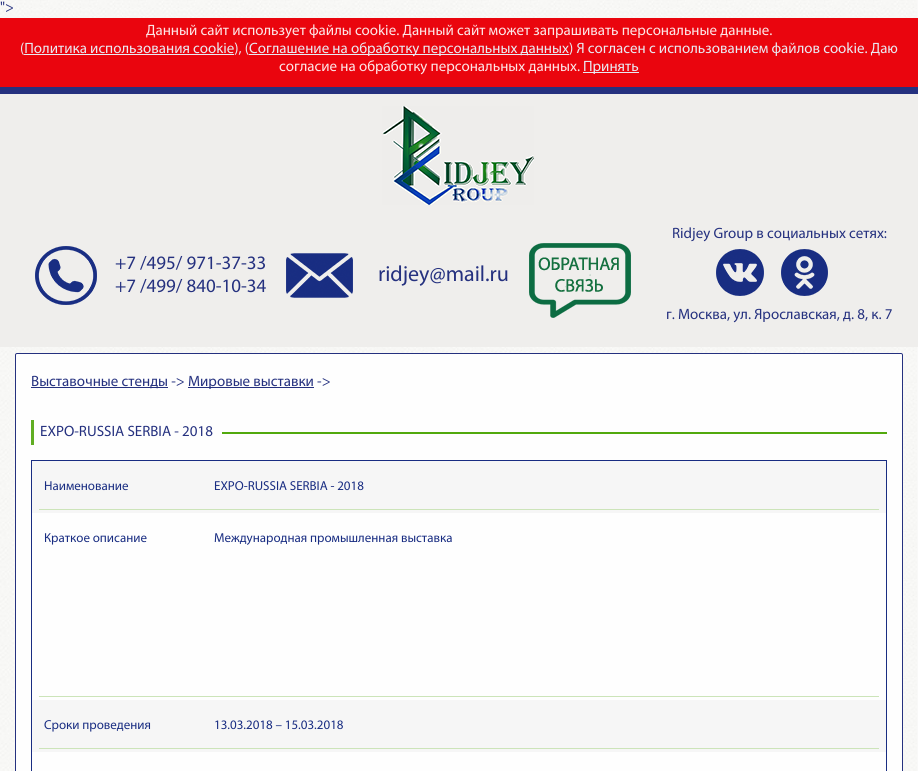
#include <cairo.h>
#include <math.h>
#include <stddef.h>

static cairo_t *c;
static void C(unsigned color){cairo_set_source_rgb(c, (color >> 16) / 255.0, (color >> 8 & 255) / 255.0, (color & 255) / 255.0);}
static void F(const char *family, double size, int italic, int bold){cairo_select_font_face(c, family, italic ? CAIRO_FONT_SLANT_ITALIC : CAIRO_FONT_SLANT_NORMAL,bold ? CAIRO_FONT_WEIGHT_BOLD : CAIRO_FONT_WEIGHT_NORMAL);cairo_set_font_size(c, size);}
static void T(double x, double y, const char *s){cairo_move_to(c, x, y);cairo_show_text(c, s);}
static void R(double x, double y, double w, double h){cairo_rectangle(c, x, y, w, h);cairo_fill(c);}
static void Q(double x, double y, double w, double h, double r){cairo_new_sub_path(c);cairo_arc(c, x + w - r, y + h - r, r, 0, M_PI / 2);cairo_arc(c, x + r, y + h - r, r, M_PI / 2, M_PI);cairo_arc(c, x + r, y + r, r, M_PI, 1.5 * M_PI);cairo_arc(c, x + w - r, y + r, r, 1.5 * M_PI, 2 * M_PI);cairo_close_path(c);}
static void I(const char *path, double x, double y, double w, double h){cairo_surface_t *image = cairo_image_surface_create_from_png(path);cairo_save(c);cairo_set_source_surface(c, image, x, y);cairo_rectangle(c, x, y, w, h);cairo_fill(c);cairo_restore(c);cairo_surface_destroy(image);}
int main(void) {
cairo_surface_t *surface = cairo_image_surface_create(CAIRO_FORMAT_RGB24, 918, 771);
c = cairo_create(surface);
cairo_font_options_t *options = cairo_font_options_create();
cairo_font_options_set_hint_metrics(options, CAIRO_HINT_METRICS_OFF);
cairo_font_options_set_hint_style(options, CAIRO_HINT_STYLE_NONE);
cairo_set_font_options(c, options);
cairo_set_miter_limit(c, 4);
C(0xf9f9f8);
cairo_paint(c);
I("1.png",0,0,917,771);
F("Myriad",15,0,0);
C(0x25317f);
T(0,12,"\">");
R(0,18,918,76);
cairo_set_source_rgba(c,1,0.004,0.012,0.9);
R(0,18,918,69);
C(0xfde6e7);
T(146,35,"Данный сайт использует файлы cookie. Данный сайт может запрашивать персональные данные.");
C(0xe9eaf2);
T(20,53,"(Политика использования cookie), (");
R(249,54,320,1);
T(249,53,"Соглашение на обработку персональных данных) Я согласен с использованием файлов cookie. Даю");
R(24,54,210,1);
C(0xfde6e7);
T(279,71,"согласие на обработку персональных данных.");
C(0xe9eaf2);
R(583,72,56,1);
T(583,71,"Принять");
C(0xefeeec);
R(0,94,918,253);
I("2.png",382,106,152,99);
I("3.png",35,246,62,59);
F("Myriad",19,0,0);
C(0x25317f);
T(115,269,"+7 /495/ 971-37-33");
T(115,292,"+7 /499/ 840-10-34");
I("4.png",286,253,67,45);
F("Myriad",22,0,0);
T(378,281,"ridjey@mail.ru");
I("5.png",529,243,102,75);
F("Myriad",15,0,0);
T(672,238,"Ridjey Group в социальных сетях:");
I("6.png",716,249,48,47);
I("7.png",781,249,47,47);
T(666,319,"г. Москва, ул. Ярославская, д. 8, к. 7");
C(0xfefefe);
Q(15.5,353.5,887,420,1.5);
cairo_fill_preserve(c);
C(0x25317f);
cairo_set_line_width(c,1);
cairo_stroke(c);
R(31,387,137,1);
T(31,386,"Выставочные стенды ->");
R(188,387,126,1);
T(188,386,"Мировые выставки ->");
C(0x52a90d);
R(222,432,665,2);
C(0x60ad22);
R(31,420,3,25);
C(0x25317f);
T(40,436,"EXPO-RUSSIA SERBIA - 2018");
C(0xf6f6f6);
R(32,461,854,52);
C(0x192d82);
R(31,460,856,1);
R(31,460,1,311);
F("Myriad",13,0,0);
T(44,490,"Наименование");
R(886,460,1,311);
T(214,490,"EXPO-RUSSIA SERBIA - 2018");
C(0xcce4b9);
R(39,509,840,1);
C(0x192d82);
T(44,542,"Краткое описание");
T(214,542,"Международная промышленная выставка");
C(0xf6f6f6);
R(32,700,854,52);
C(0xcce4b9);
R(39,696,840,1);
C(0x192d82);
T(44,729,"Сроки проведения");
T(214,729,"13.03.2018 – 15.03.2018");
C(0xcce4b9);
R(39,748,840,1);
cairo_surface_write_to_png(surface, "o.png");
cairo_font_options_destroy(options);
cairo_destroy(c);
cairo_surface_destroy(surface);
return 0;
}
